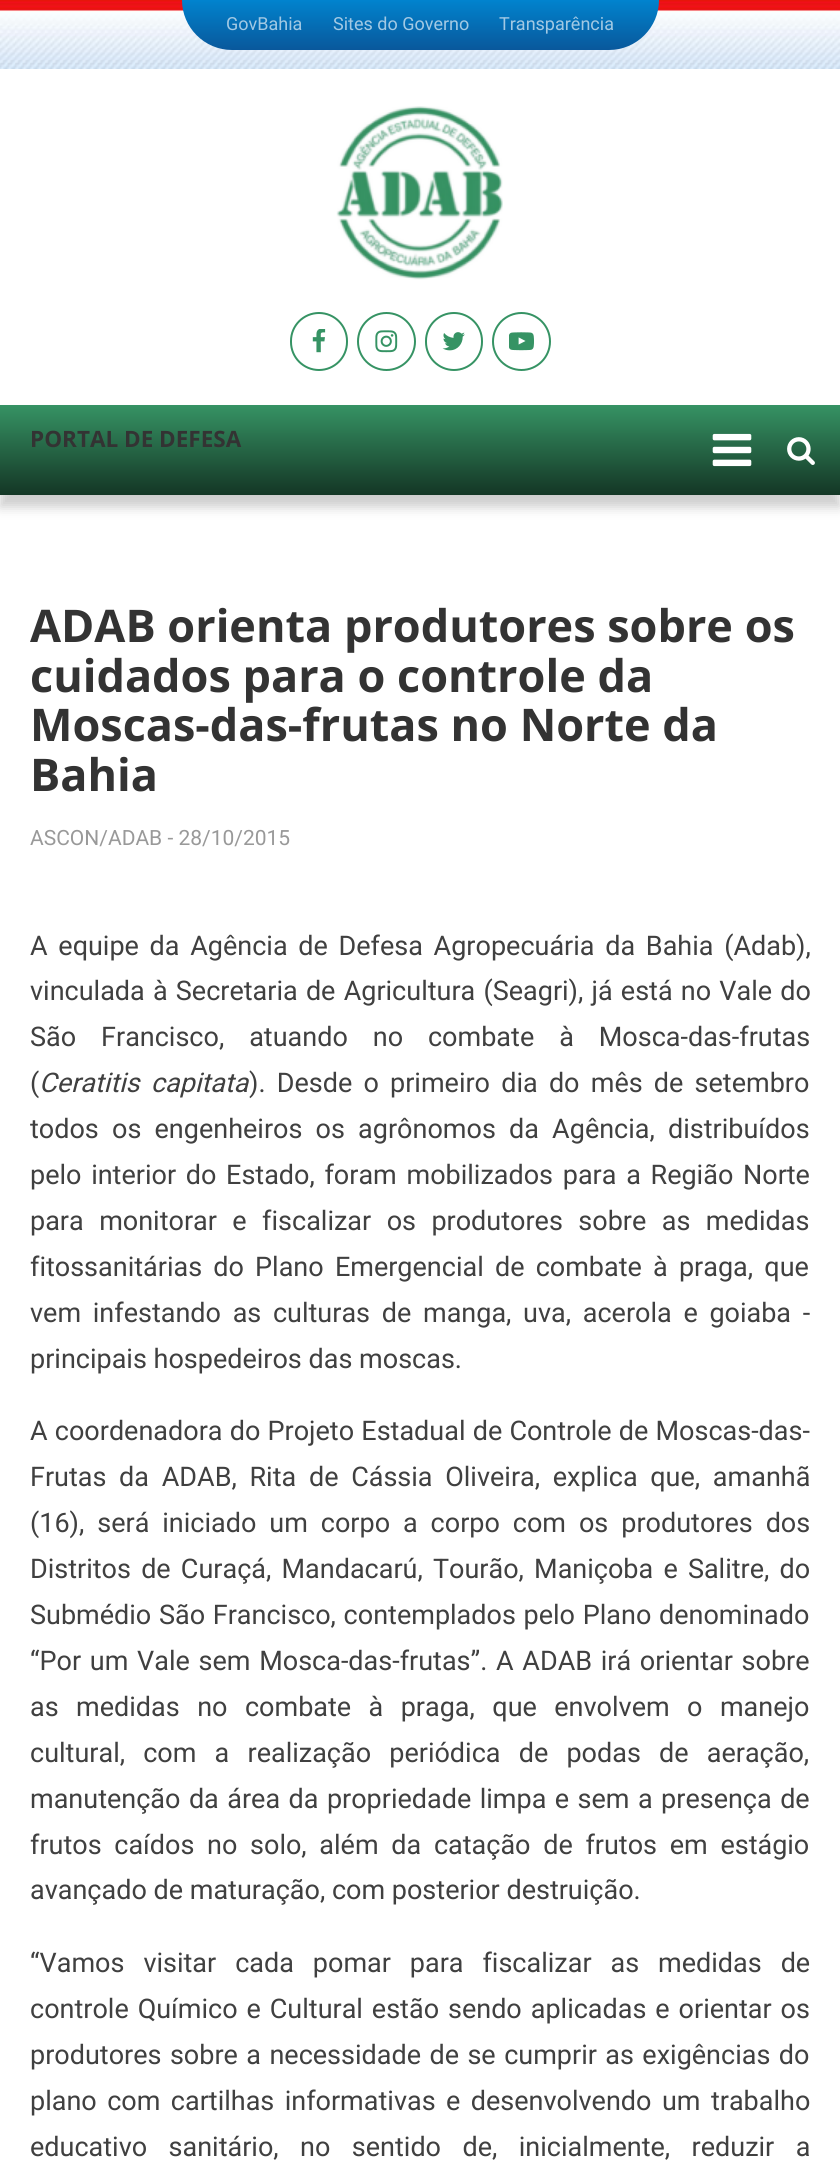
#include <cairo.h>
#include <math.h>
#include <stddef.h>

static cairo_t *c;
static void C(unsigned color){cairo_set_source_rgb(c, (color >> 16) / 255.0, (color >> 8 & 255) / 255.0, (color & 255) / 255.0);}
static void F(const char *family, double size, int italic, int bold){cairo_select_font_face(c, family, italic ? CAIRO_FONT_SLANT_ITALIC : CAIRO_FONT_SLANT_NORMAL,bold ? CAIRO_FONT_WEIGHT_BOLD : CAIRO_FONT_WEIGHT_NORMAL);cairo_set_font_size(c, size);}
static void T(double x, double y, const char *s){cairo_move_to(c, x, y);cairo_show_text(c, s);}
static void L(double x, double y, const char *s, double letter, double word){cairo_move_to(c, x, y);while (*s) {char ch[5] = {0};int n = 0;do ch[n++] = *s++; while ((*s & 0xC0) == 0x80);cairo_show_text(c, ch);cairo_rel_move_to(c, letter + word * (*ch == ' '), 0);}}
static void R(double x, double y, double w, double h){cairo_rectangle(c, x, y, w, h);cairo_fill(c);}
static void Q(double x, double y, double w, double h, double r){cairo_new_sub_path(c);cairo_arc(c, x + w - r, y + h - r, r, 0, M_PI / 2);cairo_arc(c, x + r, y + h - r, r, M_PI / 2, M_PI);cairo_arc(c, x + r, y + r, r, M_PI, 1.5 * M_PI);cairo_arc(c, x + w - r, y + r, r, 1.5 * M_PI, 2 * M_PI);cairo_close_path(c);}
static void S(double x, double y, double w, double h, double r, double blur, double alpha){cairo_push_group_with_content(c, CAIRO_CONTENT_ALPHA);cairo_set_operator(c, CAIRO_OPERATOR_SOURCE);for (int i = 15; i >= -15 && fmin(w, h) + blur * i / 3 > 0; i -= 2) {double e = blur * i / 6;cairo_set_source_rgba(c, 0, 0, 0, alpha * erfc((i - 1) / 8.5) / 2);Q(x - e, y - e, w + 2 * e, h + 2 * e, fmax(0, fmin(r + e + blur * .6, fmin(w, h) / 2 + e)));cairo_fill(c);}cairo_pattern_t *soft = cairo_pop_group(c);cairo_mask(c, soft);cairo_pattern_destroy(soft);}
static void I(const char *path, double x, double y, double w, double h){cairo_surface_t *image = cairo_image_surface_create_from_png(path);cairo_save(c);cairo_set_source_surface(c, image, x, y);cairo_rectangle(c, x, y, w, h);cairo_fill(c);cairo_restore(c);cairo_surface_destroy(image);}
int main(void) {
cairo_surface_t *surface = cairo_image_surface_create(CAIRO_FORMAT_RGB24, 840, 2171);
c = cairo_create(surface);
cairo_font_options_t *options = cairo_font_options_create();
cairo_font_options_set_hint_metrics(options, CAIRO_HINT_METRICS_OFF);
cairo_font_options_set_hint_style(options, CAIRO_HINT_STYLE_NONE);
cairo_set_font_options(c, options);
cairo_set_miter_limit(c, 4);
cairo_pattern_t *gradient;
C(0xffffff);
cairo_paint(c);
I("1.png",0,0,840,69);
gradient = cairo_pattern_create_linear(420,0,420,50);
cairo_pattern_add_color_stop_rgba(gradient,0,0.004,0.514,0.808,1);
cairo_pattern_add_color_stop_rgba(gradient,1,0.035,0.345,0.608,1);
cairo_set_source(c,gradient);
cairo_pattern_destroy(gradient);
cairo_new_path(c);
cairo_move_to(c,182,0);
cairo_line_to(c,659,0);
cairo_curve_to(c,659,27.5,636.5,50,609,50);
cairo_line_to(c,232,50);
cairo_curve_to(c,204.5,50,182,27.5,182,0);
cairo_close_path(c);
cairo_fill(c);
F("Roboto",18,0,0);
C(0xa2c9e4);
T(226,30,"GovBahia");
T(333,30,"Sites do Governo");
T(499,30,"Transparência");
I("2.png",336,106,167,174);
Q(291,313,56,57,28);
C(0x369364);
cairo_stroke(c);
I("3.png",312,329,14,24);
cairo_arc(c,386.5,341.5,28.5,0,2 * M_PI);
cairo_stroke(c);
I("4.png",375,330,23,23);
Q(426,313,56,57,28);
cairo_stroke(c);
I("5.png",442,332,23,19);
cairo_arc(c,521.5,341.5,28.5,0,2 * M_PI);
cairo_stroke(c);
I("6.png",509,332,25,19);
C(0x000000);
S(0,417,840,90,0,6,.2);
gradient = cairo_pattern_create_linear(420,405,420,495);
cairo_pattern_add_color_stop_rgba(gradient,0,0.212,0.576,0.392,1);
cairo_pattern_add_color_stop_rgba(gradient,1,0.078,0.212,0.145,1);
cairo_set_source(c,gradient);
cairo_pattern_destroy(gradient);
R(0,405,840,90);
F("Open Sans",22.5,0,1);
C(0x333333);
T(30,447,"PORTAL DE DEFESA");
I("7.png",712,433,40,34);
I("8.png",787,437,28,28);
F("Open Sans",45,0,1);
T(30,642,"ADAB orienta produtores sobre os");
T(30,692,"cuidados para o controle da");
T(30,741,"Moscas-das-frutas no Norte da");
T(30,791,"Bahia");
F("Roboto",21,0,0);
C(0x999999);
T(30,845,"ASCON/ADAB - 28/10/2015");
F("Roboto",27,0,0);
C(0x404040);
L(30,955,"A equipe da Agência de Defesa Agropecuária da Bahia (Adab),",0,4);
L(30,1000,"vinculada à Secretaria de Agricultura (Seagri), já está no Vale do",0,1.5);
L(30,1046,"São Francisco, atuando no combate à Mosca-das-frutas",0,18.25);
T(30,1092,"(");
F("Roboto",27,1,0);
L(39,1092,"Ceratitis capitata",0,4.5);
F("Roboto",27,0,0);
L(249,1092,"). Desde o primeiro dia do mês de setembro",0,4.5);
L(30,1138,"todos os engenheiros os agrônomos da Agência, distribuídos",0,6.5);
L(30,1184,"pelo interior do Estado, foram mobilizados para a Região Norte",0,3);
L(30,1230,"para monitorar e fiscalizar os produtores sobre as medidas",0,8.75);
L(30,1276,"fitossanitárias do Plano Emergencial de combate à praga, que",0,4.5);
L(30,1322,"vem infestando as culturas de manga, uva, acerola e goiaba -",0,5);
T(30,1368,"principais hospedeiros das moscas.");
L(30,1440,"A coordenadora do Projeto Estadual de Controle de Moscas-das-",0,.5);
L(30,1486,"Frutas da ADAB, Rita de Cássia Oliveira, explica que, amanhã",0,6);
L(30,1532,"(16), será iniciado um corpo a corpo com os produtores dos",0,6.25);
L(30,1578,"Distritos de Curaçá, Mandacarú, Tourão, Maniçoba e Salitre, do",0,3.5);
L(30,1624,"Submédio São Francisco, contemplados pelo Plano denominado",0,1);
L(30,1670,"“Por um Vale sem Mosca-das-frutas”. A ADAB irá orientar sobre",0,2);
L(30,1716,"as medidas no combate à praga, que envolvem o manejo",0,10.75);
L(30,1762,"cultural, com a realização periódica de podas de aeração,",0,11.5);
L(30,1808,"manutenção da área da propriedade limpa e sem a presença de",0,1.75);
L(30,1854,"frutos caídos no solo, além da catação de frutos em estágio",0,6);
T(30,1899,"avançado de maturação, com posterior destruição.");
L(30,1972,"“Vamos visitar cada pomar para fiscalizar as medidas de",0,12.25);
L(30,2018,"controle Químico e Cultural estão sendo aplicadas e orientar os",0,2.25);
L(30,2064,"produtores sobre a necessidade de se cumprir as exigências do",0,1.75);
L(30,2110,"plano com cartilhas informativas e desenvolvendo um trabalho",0,3.75);
L(30,2156,"educativo sanitário, no sentido de, inicialmente, reduzir a",0,14.75);
cairo_surface_write_to_png(surface, "o.png");
cairo_font_options_destroy(options);
cairo_destroy(c);
cairo_surface_destroy(surface);
return 0;
}
